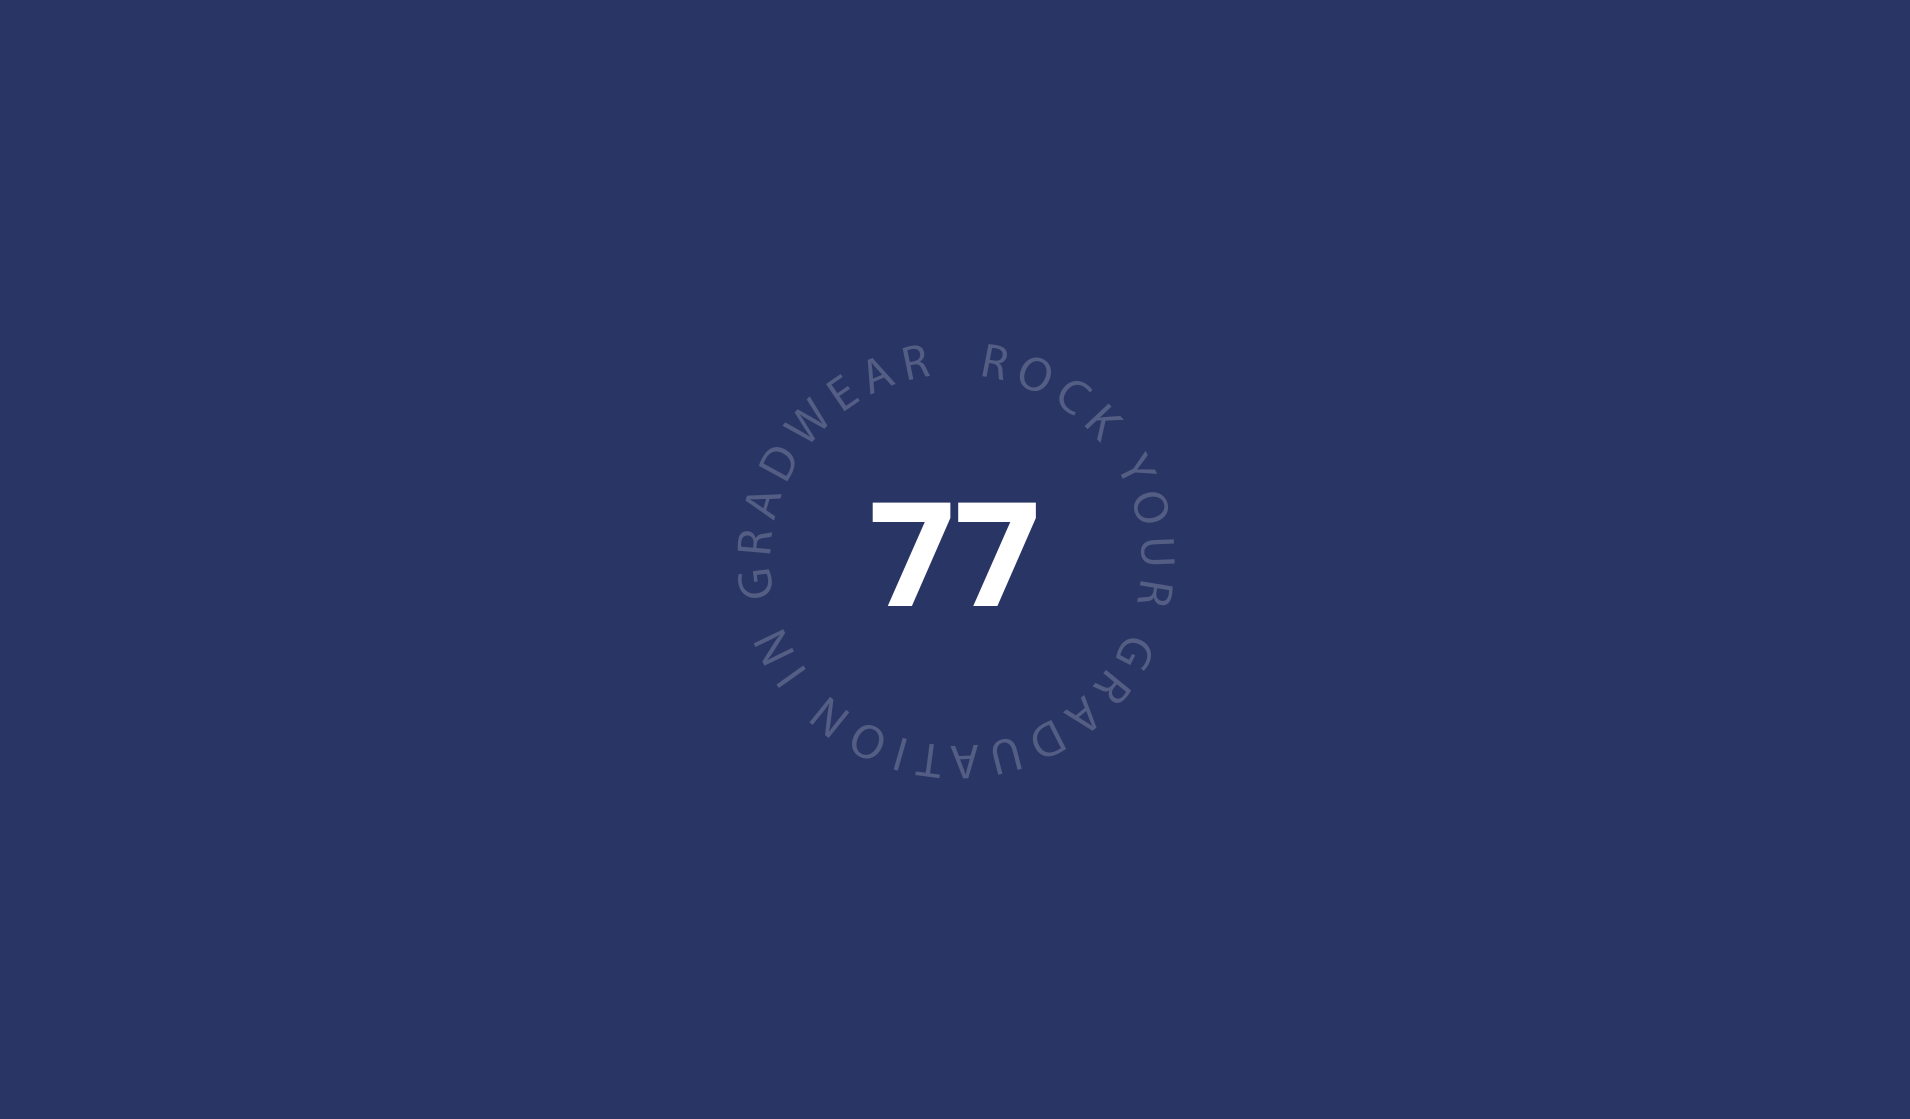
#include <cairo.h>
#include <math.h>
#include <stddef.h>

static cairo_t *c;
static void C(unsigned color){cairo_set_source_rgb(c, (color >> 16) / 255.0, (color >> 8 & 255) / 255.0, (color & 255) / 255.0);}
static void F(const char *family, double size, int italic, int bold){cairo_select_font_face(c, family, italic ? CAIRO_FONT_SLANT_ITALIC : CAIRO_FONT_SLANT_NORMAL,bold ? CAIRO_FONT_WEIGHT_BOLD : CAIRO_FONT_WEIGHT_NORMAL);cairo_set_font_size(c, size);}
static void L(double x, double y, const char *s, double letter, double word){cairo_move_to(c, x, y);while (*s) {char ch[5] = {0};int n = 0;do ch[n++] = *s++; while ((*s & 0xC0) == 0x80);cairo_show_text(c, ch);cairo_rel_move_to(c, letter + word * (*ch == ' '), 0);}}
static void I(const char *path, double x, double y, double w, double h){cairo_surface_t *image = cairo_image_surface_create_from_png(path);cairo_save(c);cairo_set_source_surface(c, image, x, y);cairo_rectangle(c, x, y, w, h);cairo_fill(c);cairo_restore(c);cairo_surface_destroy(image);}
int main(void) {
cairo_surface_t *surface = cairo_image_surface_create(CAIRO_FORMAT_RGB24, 1910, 1119);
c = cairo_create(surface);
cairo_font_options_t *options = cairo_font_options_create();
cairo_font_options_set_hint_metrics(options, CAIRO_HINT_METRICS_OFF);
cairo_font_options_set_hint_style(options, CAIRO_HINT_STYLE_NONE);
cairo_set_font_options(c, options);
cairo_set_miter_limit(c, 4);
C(0x293565);
cairo_paint(c);
I("1.png",737,344,438,435);
F("Proxima Nova",155,0,1);
C(0xffffff);
L(869,606,"77",1,0);
cairo_surface_write_to_png(surface, "o.png");
cairo_font_options_destroy(options);
cairo_destroy(c);
cairo_surface_destroy(surface);
return 0;
}
